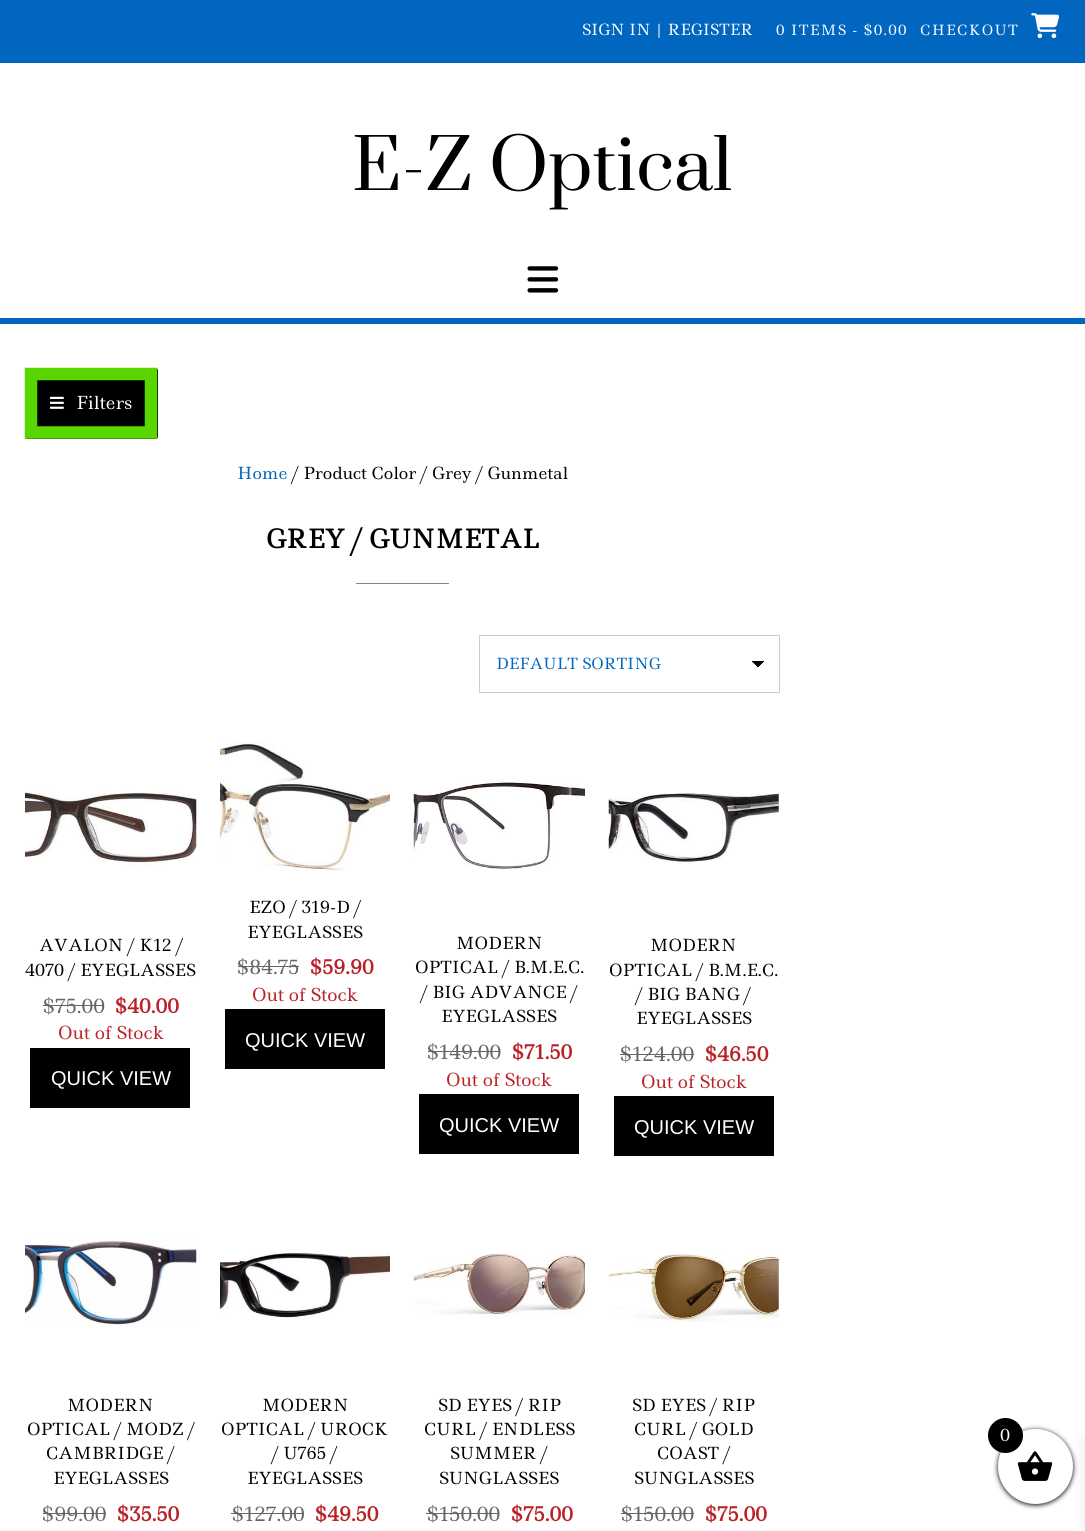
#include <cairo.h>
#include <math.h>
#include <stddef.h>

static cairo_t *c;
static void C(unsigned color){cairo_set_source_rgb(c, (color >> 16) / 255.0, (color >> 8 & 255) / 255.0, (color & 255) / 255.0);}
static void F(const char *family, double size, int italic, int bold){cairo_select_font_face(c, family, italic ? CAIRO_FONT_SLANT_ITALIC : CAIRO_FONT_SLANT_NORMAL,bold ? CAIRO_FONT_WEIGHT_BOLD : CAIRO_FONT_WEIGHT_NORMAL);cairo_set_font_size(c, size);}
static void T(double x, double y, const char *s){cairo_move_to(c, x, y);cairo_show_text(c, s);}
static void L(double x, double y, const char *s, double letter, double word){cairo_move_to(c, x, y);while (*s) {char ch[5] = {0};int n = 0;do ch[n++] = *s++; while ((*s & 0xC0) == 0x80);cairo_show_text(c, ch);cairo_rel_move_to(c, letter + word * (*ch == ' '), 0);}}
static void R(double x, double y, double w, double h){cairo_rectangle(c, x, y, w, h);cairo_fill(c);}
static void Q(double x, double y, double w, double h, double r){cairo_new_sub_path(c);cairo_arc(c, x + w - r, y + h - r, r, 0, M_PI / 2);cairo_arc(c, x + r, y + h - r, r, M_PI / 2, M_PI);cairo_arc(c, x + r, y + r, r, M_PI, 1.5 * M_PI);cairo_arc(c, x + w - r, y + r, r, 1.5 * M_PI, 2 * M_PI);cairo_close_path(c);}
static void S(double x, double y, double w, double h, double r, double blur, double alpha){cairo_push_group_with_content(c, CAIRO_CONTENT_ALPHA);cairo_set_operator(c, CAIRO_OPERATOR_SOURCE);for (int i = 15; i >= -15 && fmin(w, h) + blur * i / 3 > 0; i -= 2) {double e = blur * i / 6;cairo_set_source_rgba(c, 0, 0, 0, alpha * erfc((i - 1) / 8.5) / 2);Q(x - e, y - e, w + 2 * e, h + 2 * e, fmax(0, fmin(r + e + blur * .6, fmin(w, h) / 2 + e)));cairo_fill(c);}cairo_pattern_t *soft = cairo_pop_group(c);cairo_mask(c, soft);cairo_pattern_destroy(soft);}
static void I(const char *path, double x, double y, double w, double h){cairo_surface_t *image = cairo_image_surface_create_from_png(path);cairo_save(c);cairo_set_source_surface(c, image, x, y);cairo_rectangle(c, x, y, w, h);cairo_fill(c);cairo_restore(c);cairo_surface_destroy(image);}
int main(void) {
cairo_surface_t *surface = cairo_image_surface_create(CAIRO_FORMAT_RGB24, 1085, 1531);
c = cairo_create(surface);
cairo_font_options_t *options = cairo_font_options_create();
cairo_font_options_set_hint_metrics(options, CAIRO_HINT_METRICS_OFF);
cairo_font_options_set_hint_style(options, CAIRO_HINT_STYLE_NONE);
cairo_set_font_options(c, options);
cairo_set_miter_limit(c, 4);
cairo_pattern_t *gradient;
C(0xffffff);
cairo_paint(c);
C(0x0066bf);
R(0,0,1085,63);
F("Ledger",15,0,0);
C(0xffffff);
T(582,35,"SIGN IN | REGISTER");
F("Ledger",13.75,0,0);
L(776,35,"0 ITEMS - $0.00",1.25,0);
L(920,35,"CHECKOUT",1.25,0);
I("1.png",1031,13,29,26);
F("Prata",68.75,0,0);
C(0x000000);
T(352,190,"E-Z Optical");
C(0x0066bf);
R(0,318,1085,6);
I("2.png",527,266,32,27);
C(0x000000);
Q(25,368,133,71,2.5);
cairo_fill(c);
cairo_new_path(c);
cairo_move_to(c,31,374);
cairo_line_to(c,151,374);
cairo_line_to(c,151,432.5);
cairo_line_to(c,31,432.5);
cairo_close_path(c);
C(0x59d600);
cairo_set_line_width(c,12.5);
cairo_stroke(c);
I("3.png",50,396,14,13);
F("Ledger",17.5,0,0);
C(0xffffff);
T(76,409,"Filters");
F("Ledger",16.25,0,0);
C(0x0066bf);
T(237,479,"Home");
C(0x000000);
T(292,479,"/ Product Color / Grey / Gunmetal");
F("Ledger",25,0,1);
T(266,548,"GREY / GUNMETAL");
C(0x828387);
R(356,583,93,1);
gradient = cairo_pattern_create_linear(758,661,764,668);
cairo_pattern_add_color_stop_rgba(gradient,.5,0,0,0,1);
cairo_pattern_add_color_stop_rgba(gradient,.5,1,1,1,1);
cairo_set_source(c,gradient);
cairo_pattern_destroy(gradient);
R(758,661,6,7);
gradient = cairo_pattern_create_linear(751,668,758,661);
cairo_pattern_add_color_stop_rgba(gradient,.5,1,1,1,1);
cairo_pattern_add_color_stop_rgba(gradient,.5,0,0,0,1);
cairo_set_source(c,gradient);
cairo_pattern_destroy(gradient);
R(751,661,7,6);
cairo_rectangle(c,479.5,635.5,300,57);
C(0xcccccc);
cairo_set_line_width(c,1);
cairo_stroke(c);
F("Ledger",15,0,0);
C(0x0066bf);
T(496,669,"DEFAULT SORTING");
I("4.png",25,788,172,79);
F("Ledger",16.25,0,0);
C(0x000000);
T(39,951,"AVALON / K12 /");
T(25,976,"4070 / EYEGLASSES");
F("Ledger",19,0,0);
C(0x666666);
T(43,1013,"$75.00");
R(43,1005,61,1);
F("Ledger",19,0,1);
C(0xba2227);
T(115,1013,"$40.00");
F("Ledger",17.5,0,0);
T(58,1039,"Out of Stock");
C(0x000000);
R(30,1048,160,60);
F("Liberation Sans",20,0,0);
C(0xffffff);
T(51,1085,"QUICK VIEW");
I("5.png",220,742,170,129);
F("Ledger",16.25,0,0);
C(0x000000);
T(249,913,"EZO / 319-D /");
T(247,938,"EYEGLASSES");
F("Ledger",19,0,0);
C(0x666666);
T(237,974,"$84.75");
R(238,966,61,1);
F("Ledger",19,0,1);
C(0xba2227);
T(310,974,"$59.90");
F("Ledger",17.5,0,0);
T(252,1001,"Out of Stock");
C(0x000000);
R(225,1009,160,60);
F("Liberation Sans",20,0,0);
C(0xffffff);
T(245,1047,"QUICK VIEW");
I("6.png",413,779,172,91);
F("Ledger",16.25,0,0);
C(0x000000);
T(456,949,"MODERN");
T(415,973,"OPTICAL / B.M.E.C.");
T(421,998,"/ BIG ADVANCE /");
T(441,1022,"EYEGLASSES");
F("Ledger",19,0,0);
C(0x666666);
T(427,1059,"$149.00");
R(428,1051,72,1);
F("Ledger",19,0,1);
C(0xba2227);
T(512,1059,"$71.50");
F("Ledger",17.5,0,0);
T(446,1086,"Out of Stock");
C(0x000000);
R(419,1094,160,60);
F("Liberation Sans",20,0,0);
C(0xffffff);
T(439,1132,"QUICK VIEW");
I("7.png",608,793,171,70);
F("Ledger",16.25,0,0);
C(0x000000);
T(650,951,"MODERN");
T(609,976,"OPTICAL / B.M.E.C.");
T(636,1000,"/ BIG BANG /");
T(636,1024,"EYEGLASSES");
F("Ledger",19,0,0);
C(0x666666);
T(620,1061,"$124.00");
R(620,1054,74,1);
F("Ledger",19,0,1);
C(0xba2227);
T(705,1061,"$46.50");
F("Ledger",17.5,0,0);
T(641,1088,"Out of Stock");
C(0x000000);
R(614,1096,160,60);
F("Liberation Sans",20,0,0);
C(0xffffff);
T(634,1134,"QUICK VIEW");
I("8.png",25,1236,172,91);
F("Ledger",16.25,0,0);
C(0x000000);
T(67,1411,"MODERN");
T(27,1435,"OPTICAL / MODZ /");
T(46,1459,"CAMBRIDGE /");
T(53,1484,"EYEGLASSES");
F("Ledger",19,0,0);
C(0x666666);
T(42,1521,"$99.00");
R(43,1513,63,1);
F("Ledger",19,0,1);
C(0xba2227);
T(117,1521,"$35.50");
I("9.png",220,1252,170,66);
F("Ledger",16.25,0,0);
C(0x000000);
T(262,1411,"MODERN");
T(221,1435,"OPTICAL / UROCK");
T(272,1459,"/ U765 /");
T(247,1484,"EYEGLASSES");
F("Ledger",19,0,0);
C(0x666666);
T(232,1521,"$127.00");
R(231,1513,73,1);
F("Ledger",19,0,1);
C(0xba2227);
T(315,1521,"$49.50");
I("10.png",413,1252,172,66);
F("Ledger",16.25,0,0);
C(0x000000);
T(438,1411,"SD EYES / RIP");
T(424,1435,"CURL / ENDLESS");
T(450,1459,"SUMMER /");
T(439,1484,"SUNGLASSES");
F("Ledger",19,0,0);
C(0x666666);
T(427,1521,"$150.00");
R(426,1513,73,1);
F("Ledger",19,0,1);
C(0xba2227);
T(511,1521,"$75.00");
I("11.png",608,1254,171,72);
F("Ledger",16.25,0,0);
C(0x000000);
T(632,1411,"SD EYES / RIP");
T(634,1435,"CURL / GOLD");
T(657,1459,"COAST /");
T(634,1484,"SUNGLASSES");
F("Ledger",19,0,0);
C(0x666666);
T(621,1521,"$150.00");
R(621,1513,73,1);
F("Ledger",19,0,1);
C(0xba2227);
T(705,1521,"$75.00");
C(0x000000);
S(998,1430,75,75,37.5,2.5,1);
S(1085,1440,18,85,0,6,.1);
C(0xffffff);
cairo_arc(c,1035.5,1466.5,37.5,0,2 * M_PI);
cairo_fill(c);
I("12.png",1017,1451,36,30);
C(0x000000);
cairo_arc(c,1005.5,1435.5,17.5,0,2 * M_PI);
cairo_fill(c);
F("Ledger",16.25,0,0);
C(0xffffff);
T(1000,1441,"0");
cairo_surface_write_to_png(surface, "o.png");
cairo_font_options_destroy(options);
cairo_destroy(c);
cairo_surface_destroy(surface);
return 0;
}
